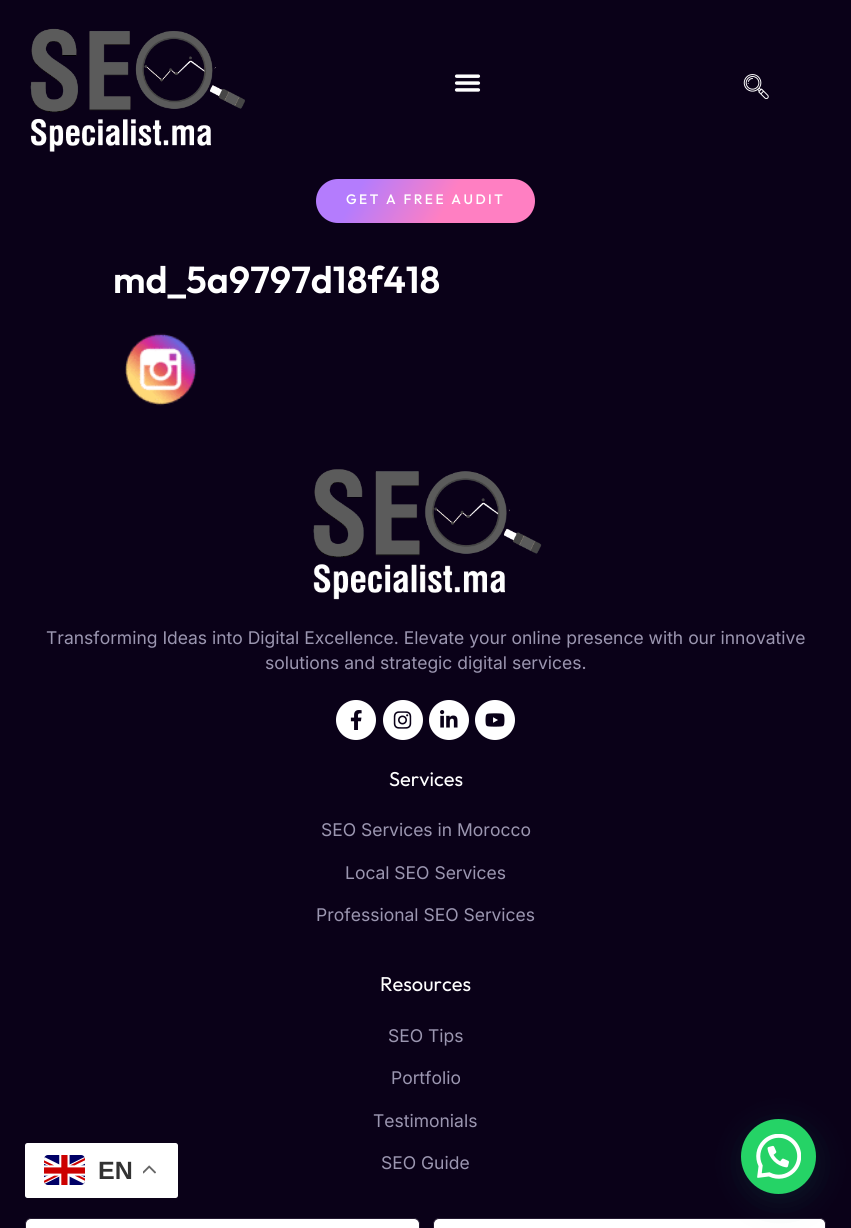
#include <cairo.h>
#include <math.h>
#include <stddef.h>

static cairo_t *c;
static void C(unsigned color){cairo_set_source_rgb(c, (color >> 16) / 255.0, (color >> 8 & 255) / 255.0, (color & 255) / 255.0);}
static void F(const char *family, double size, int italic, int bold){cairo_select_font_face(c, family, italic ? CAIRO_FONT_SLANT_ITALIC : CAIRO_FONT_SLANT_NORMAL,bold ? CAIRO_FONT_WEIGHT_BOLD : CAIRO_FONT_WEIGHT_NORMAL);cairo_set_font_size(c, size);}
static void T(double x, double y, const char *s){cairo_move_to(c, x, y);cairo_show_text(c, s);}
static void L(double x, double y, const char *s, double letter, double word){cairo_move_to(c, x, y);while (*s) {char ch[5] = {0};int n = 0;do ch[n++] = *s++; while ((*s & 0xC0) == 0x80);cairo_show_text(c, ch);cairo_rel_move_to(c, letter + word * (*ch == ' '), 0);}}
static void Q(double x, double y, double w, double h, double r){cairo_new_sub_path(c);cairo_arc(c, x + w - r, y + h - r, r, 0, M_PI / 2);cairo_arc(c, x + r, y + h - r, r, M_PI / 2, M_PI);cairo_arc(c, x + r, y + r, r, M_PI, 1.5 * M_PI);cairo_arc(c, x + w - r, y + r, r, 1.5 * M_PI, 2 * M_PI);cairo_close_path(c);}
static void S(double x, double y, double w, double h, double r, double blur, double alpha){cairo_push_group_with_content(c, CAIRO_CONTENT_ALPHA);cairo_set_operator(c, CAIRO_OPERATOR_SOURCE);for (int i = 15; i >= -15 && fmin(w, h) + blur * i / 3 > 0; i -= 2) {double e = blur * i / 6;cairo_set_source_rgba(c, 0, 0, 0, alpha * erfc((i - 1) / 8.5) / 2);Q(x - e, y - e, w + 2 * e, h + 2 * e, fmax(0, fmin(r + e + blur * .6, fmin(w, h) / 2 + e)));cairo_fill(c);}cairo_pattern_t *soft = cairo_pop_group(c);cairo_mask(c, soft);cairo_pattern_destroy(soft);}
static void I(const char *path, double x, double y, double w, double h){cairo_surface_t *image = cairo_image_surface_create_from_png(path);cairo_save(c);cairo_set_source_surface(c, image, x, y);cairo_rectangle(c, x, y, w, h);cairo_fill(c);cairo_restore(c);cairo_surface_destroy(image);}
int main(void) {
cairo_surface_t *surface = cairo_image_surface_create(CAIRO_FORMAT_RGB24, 851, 1228);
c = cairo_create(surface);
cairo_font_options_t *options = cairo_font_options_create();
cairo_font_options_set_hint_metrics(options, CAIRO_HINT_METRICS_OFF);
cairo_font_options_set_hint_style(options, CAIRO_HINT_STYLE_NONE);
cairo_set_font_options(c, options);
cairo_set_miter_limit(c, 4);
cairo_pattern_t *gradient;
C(0x0a0118);
cairo_paint(c);
I("1.png",30,28,215,124);
I("2.png",454,74,27,18);
I("3.png",743,74,26,25);
gradient = cairo_pattern_create_linear(334,148,517,253);
cairo_pattern_add_color_stop_rgba(gradient,.2,0.706,0.486,0.992,1);
cairo_pattern_add_color_stop_rgba(gradient,.6,1,0.498,0.761,1);
cairo_set_source(c,gradient);
cairo_pattern_destroy(gradient);
Q(316,179,219,44,22);
cairo_fill(c);
F("Outfit Medium",13.75,0,0);
C(0xffffff);
L(346,204,"GET A FREE AUDIT",2.5,0);
F("Outfit SemiBold",37.5,0,0);
T(113,293,"md_5a9797d18f418");
I("4.png",125,333,72,73);
I("5.png",313,469,229,131);
F("Inter",17.5,0,0);
C(0x9b96b0);
T(46,644,"Transforming Ideas into Digital Excellence. Elevate your online presence with our innovative");
T(265,669,"solutions and strategic digital services.");
C(0xffffff);
cairo_new_path(c);
cairo_arc(c,356,720,20,0,2 * M_PI);
cairo_fill(c);
I("6.png",350,710,12,20);
cairo_arc(c,403,720,20,0,2 * M_PI);
cairo_fill(c);
I("7.png",393,711,19,18);
cairo_arc(c,449,720,20,0,2 * M_PI);
cairo_fill(c);
I("8.png",440,710,18,18);
cairo_arc(c,495,720,20,0,2 * M_PI);
cairo_fill(c);
I("9.png",485,713,20,14);
F("Outfit",20,0,0);
T(389,786,"Services");
F("Inter",17.5,0,0);
C(0x9b96b0);
T(321,836,"SEO Services in Morocco");
T(345,879,"Local SEO Services");
T(316,921,"Professional SEO Services");
F("Outfit",20,0,0);
C(0xffffff);
T(380,991,"Resources");
F("Inter",17.5,0,0);
C(0x9b96b0);
T(388,1042,"SEO Tips");
T(391,1084,"Portfolio");
T(373,1127,"Testimonials");
T(381,1169,"SEO Guide");
C(0xffffff);
Q(25.5,1218.5,394,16,5.5);
cairo_fill_preserve(c);
C(0x241a30);
cairo_set_line_width(c,1);
cairo_stroke(c);
C(0xffffff);
Q(433.5,1218.5,392,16,5.5);
cairo_fill_preserve(c);
C(0x241a30);
cairo_stroke(c);
C(0xffffff);
Q(25,1143,153,55,2.5);
cairo_fill(c);
I("10.png",44,1155,41,30);
F("Liberation Sans",25,0,1);
C(0x333333);
T(98,1179,"EN");
I("11.png",143,1165,13,9);
C(0x075e54);
S(743,1126,75,75,37.5,15,.24);
C(0x25d366);
cairo_arc(c,778.5,1156.5,37.5,0,2 * M_PI);
cairo_fill(c);
I("12.png",756,1134,45,45);
cairo_surface_write_to_png(surface, "o.png");
cairo_font_options_destroy(options);
cairo_destroy(c);
cairo_surface_destroy(surface);
return 0;
}
